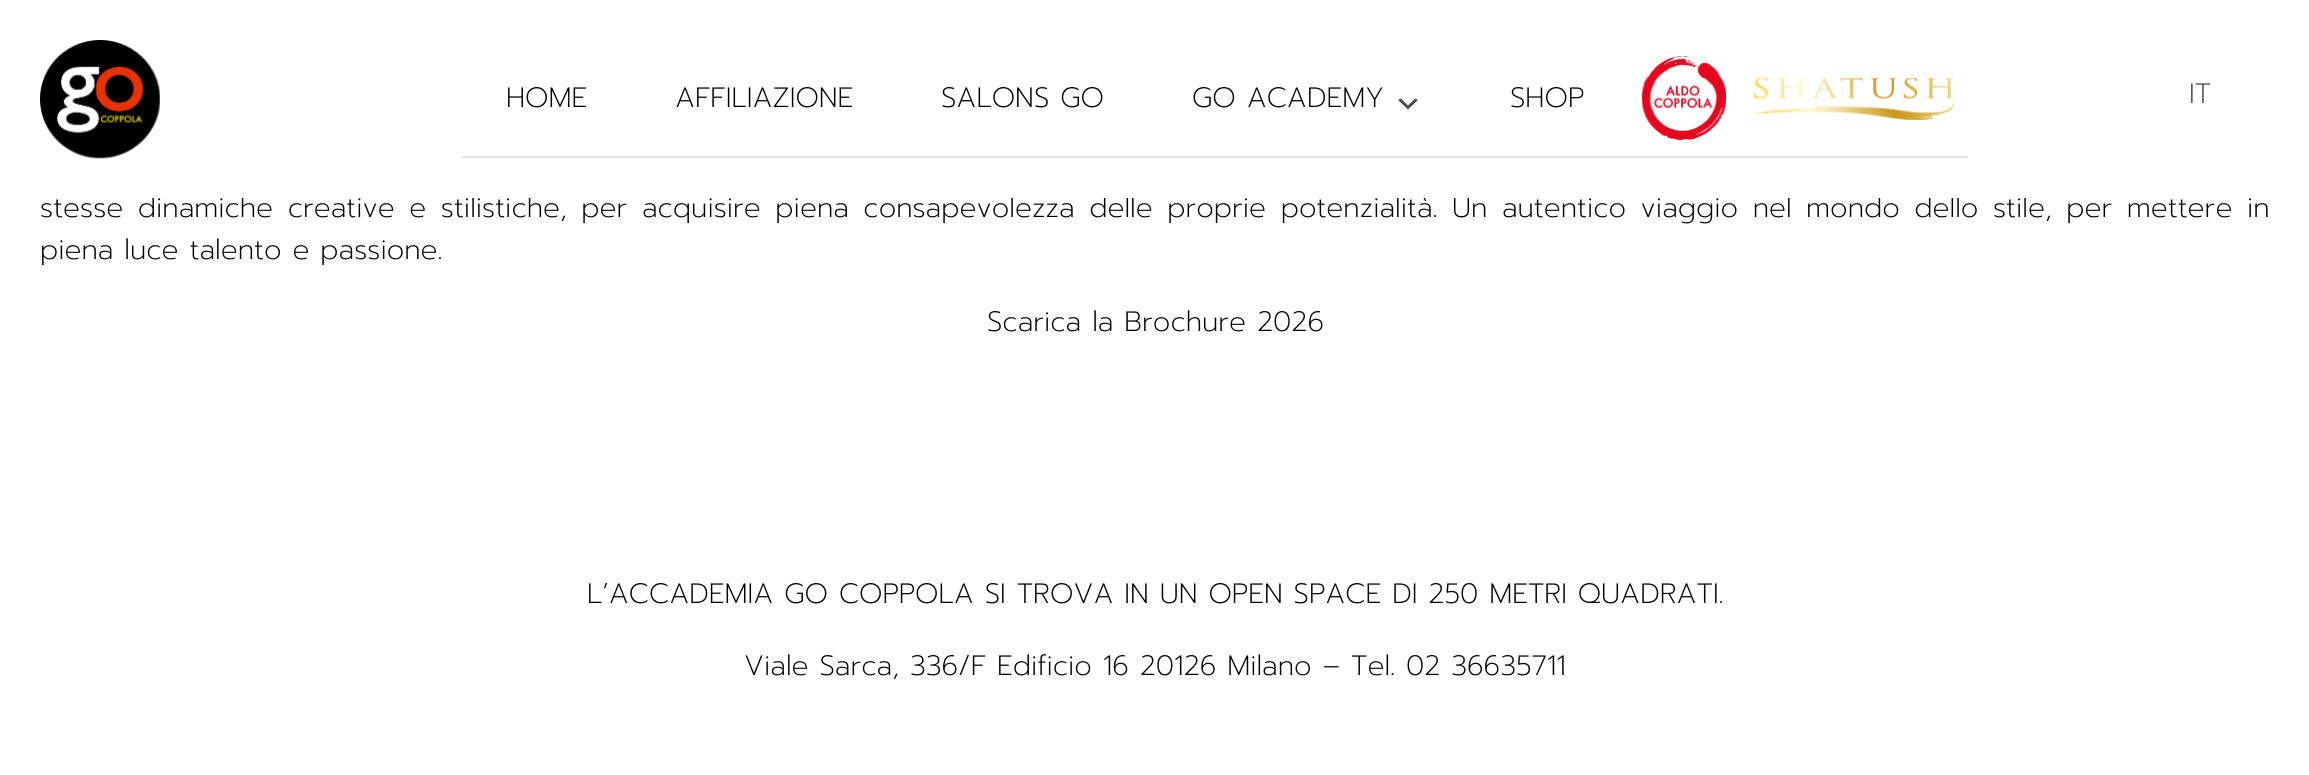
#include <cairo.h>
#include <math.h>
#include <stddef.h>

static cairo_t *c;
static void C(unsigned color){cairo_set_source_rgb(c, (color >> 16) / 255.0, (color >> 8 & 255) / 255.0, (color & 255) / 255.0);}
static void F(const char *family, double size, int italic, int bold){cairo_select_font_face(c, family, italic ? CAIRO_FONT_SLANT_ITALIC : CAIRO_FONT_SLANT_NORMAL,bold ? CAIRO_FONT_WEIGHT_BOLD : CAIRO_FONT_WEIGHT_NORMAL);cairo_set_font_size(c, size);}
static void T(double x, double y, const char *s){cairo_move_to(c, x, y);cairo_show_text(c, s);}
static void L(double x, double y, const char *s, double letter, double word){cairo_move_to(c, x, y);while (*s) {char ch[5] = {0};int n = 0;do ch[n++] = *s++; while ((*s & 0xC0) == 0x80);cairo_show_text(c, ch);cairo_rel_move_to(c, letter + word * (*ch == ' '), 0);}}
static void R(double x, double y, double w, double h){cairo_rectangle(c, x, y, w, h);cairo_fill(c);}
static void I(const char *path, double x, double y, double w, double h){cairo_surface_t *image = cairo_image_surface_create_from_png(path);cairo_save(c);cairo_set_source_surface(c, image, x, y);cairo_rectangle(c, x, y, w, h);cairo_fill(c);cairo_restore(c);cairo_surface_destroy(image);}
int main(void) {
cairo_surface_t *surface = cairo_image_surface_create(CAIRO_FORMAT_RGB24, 2309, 775);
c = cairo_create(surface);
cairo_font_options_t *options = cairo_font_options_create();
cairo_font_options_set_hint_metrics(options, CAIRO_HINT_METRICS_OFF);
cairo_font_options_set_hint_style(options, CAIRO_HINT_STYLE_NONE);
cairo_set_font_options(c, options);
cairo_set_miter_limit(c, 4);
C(0xffffff);
cairo_paint(c);
F("Prompt ExtraLight",28,0,0);
C(0x000000);
L(40,217,"stesse dinamiche creative e stilistiche, per acquisire piena consapevolezza delle proprie potenzialità. Un autentico viaggio nel mondo dello stile, per mettere in",0,3.6);
C(0xffffff);
R(152,196,1875,2);
I("1.png",40,40,120,119);
C(0xe3e3e3);
R(462,156,1506,2);
C(0x000000);
T(506,107,"HOME");
T(675,107,"AFFILIAZIONE");
T(941,107,"SALONS GO");
T(1192,107,"GO ACADEMY");
C(0x4d4d4d);
cairo_new_path(c);
cairo_move_to(c,1401,98.5);
cairo_line_to(c,1408,105.5);
cairo_line_to(c,1415,98.5);
cairo_line_to(c,1418,100);
cairo_line_to(c,1408,109.5);
cairo_line_to(c,1398,100);
cairo_close_path(c);
cairo_fill(c);
C(0x000000);
T(1510,107,"SHOP");
I("2.png",1642,56,84,84);
I("3.png",1754,78,200,42);
C(0x444444);
T(2189,103,"IT");
C(0x000000);
T(40,259,"piena luce talento e passione.");
T(987,331,"Scarica la Brochure 2026");
T(587,603,"L’ACCADEMIA GO COPPOLA SI TROVA IN UN OPEN SPACE DI 250 METRI QUADRATI.");
T(744,675,"Viale Sarca, 336/F Edificio 16 20126 Milano – Tel. 02 36635711");
cairo_surface_write_to_png(surface, "o.png");
cairo_font_options_destroy(options);
cairo_destroy(c);
cairo_surface_destroy(surface);
return 0;
}
